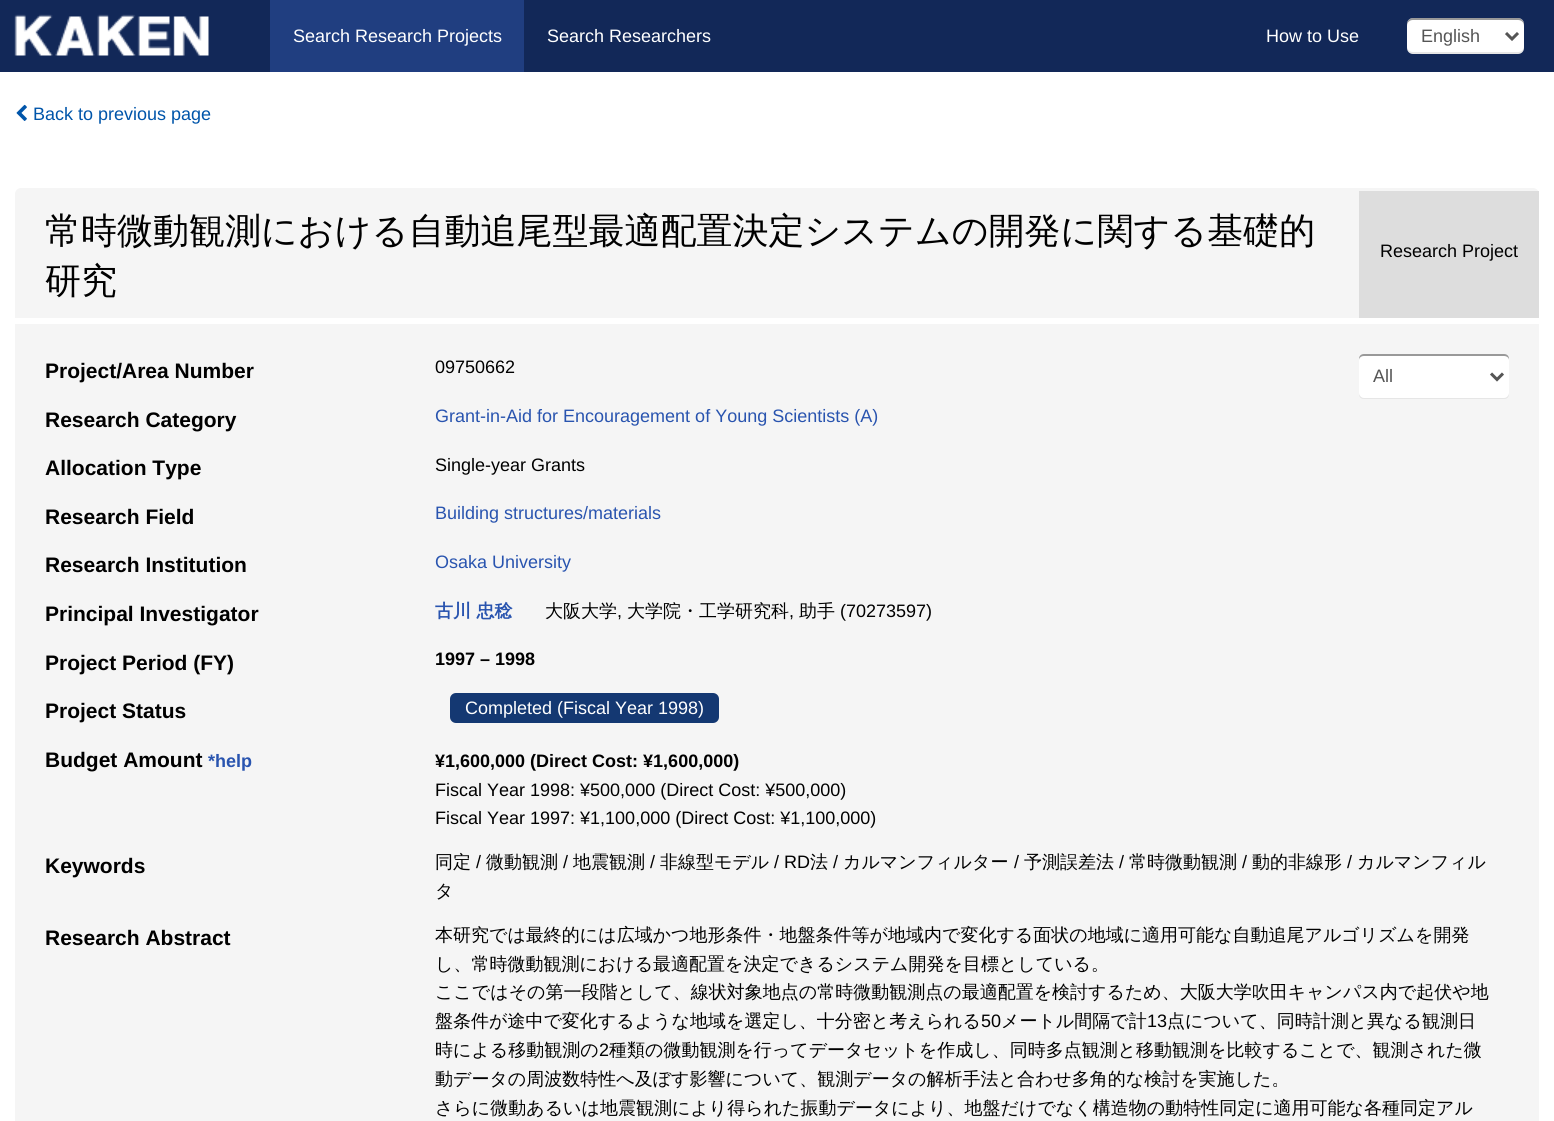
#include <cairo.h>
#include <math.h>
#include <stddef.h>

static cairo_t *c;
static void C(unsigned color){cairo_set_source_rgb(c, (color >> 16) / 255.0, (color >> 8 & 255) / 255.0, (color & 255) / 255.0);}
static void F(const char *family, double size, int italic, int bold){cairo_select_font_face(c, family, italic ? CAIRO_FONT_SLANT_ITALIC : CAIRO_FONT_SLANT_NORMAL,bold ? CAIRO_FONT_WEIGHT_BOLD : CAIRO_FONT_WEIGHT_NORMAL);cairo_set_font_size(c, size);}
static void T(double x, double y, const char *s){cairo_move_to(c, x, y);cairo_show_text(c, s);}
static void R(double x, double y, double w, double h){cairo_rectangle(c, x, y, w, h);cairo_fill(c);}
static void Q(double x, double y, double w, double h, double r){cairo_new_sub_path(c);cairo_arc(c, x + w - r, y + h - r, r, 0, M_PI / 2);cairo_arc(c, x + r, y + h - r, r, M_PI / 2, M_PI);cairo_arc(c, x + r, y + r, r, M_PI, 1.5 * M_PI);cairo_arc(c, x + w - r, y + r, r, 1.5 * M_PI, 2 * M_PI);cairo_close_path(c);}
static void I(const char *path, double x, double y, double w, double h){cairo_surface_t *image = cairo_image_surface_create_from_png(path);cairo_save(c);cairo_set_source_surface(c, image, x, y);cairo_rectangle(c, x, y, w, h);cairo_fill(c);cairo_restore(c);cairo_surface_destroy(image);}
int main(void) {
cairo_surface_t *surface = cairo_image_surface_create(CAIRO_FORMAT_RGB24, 1554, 1121);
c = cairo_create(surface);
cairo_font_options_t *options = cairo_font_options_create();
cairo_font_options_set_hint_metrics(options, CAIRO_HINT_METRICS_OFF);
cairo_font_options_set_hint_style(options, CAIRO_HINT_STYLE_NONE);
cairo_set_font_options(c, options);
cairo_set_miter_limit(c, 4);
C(0xffffff);
cairo_paint(c);
C(0x122858);
R(0,0,1554,72);
I("1.png",14,14,195,42);
C(0x203e80);
R(270,0,254,72);
F("Liberation Sans",18,0,0);
C(0xffffff);
T(293,42,"Search Research Projects");
T(547,42,"Search Researchers");
T(1266,42,"How to Use");
Q(1407,18,117,36,6);
cairo_fill(c);
cairo_set_source_rgba(c,0,0,0,0.1);
cairo_new_path(c);
cairo_move_to(c,1407,46);
cairo_line_to(c,1407,48);
cairo_curve_to(c,1407,51,1410,54,1413,54);
cairo_line_to(c,1518,54);
cairo_curve_to(c,1521,54,1524,51,1524,48);
cairo_line_to(c,1524,46);
cairo_curve_to(c,1524,50,1521,52,1518,52);
cairo_line_to(c,1413,52);
cairo_curve_to(c,1410,52,1407,50,1407,46);
cairo_close_path(c);
cairo_fill(c);
cairo_set_source_rgba(c,0,0,0,0.4);
cairo_new_path(c);
cairo_move_to(c,1413,20);
cairo_line_to(c,1518,20);
cairo_curve_to(c,1521,20,1524,22,1524,26);
cairo_line_to(c,1524,24);
cairo_curve_to(c,1524,21,1521,18,1518,18);
cairo_line_to(c,1413,18);
cairo_curve_to(c,1410,18,1407,21,1407,24);
cairo_line_to(c,1407,26);
cairo_curve_to(c,1407,22,1410,20,1413,20);
cairo_close_path(c);
cairo_fill(c);
cairo_new_path(c);
cairo_move_to(c,1506,33);
cairo_line_to(c,1512,39);
cairo_line_to(c,1518,33);
C(0x555555);
cairo_set_line_width(c,3);
cairo_stroke(c);
T(1421,42,"English");
I("2.png",16,104,11,17);
C(0x0055aa);
T(33,120,"Back to previous page");
C(0xf5f5f5);
Q(15,188,1524,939,6);
cairo_fill(c);
C(0xdddddd);
R(1359,191,180,127);
F("WenQuanYi Zen Hei Medium",36,0,0);
C(0x000000);
T(45,243,"常時微動観測における自動追尾型最適配置決定システムの開発に関する基礎的");
T(45,293,"研究");
F("Liberation Sans",18,0,0);
T(1380,257,"Research Project");
C(0xffffff);
R(15,318,1524,6);
F("Liberation Sans",21,0,1);
C(0x000000);
T(45,378,"Project/Area Number");
F("Liberation Sans",18,0,0);
T(435,373,"09750662");
F("Liberation Sans",21,0,1);
T(45,427,"Research Category");
F("Liberation Sans",18,0,0);
C(0x2954af);
T(435,422,"Grant-in-Aid for Encouragement of Young Scientists (A)");
F("Liberation Sans",21,0,1);
C(0x000000);
T(45,475,"Allocation Type");
F("Liberation Sans",18,0,0);
T(435,471,"Single-year Grants");
F("Liberation Sans",21,0,1);
T(45,524,"Research Field");
F("Liberation Sans",18,0,0);
C(0x2954af);
T(435,519,"Building structures/materials");
F("Liberation Sans",21,0,1);
C(0x000000);
T(45,572,"Research Institution");
F("Liberation Sans",18,0,0);
C(0x2954af);
T(435,568,"Osaka University");
F("Liberation Sans",21,0,1);
C(0x000000);
T(45,621,"Principal Investigator");
F("WenQuanYi Zen Hei",18,0,1);
C(0x2954af);
T(435,617,"古川 忠稔");
F("WenQuanYi Zen Hei Medium",18,0,0);
C(0x000000);
T(545,617,"大阪大学");
F("Liberation Sans",18,0,0);
T(617,617,",");
F("WenQuanYi Zen Hei Medium",18,0,0);
T(627,617,"大学院・工学研究科");
F("Liberation Sans",18,0,0);
T(789,617,",");
F("WenQuanYi Zen Hei Medium",18,0,0);
T(799,617,"助手");
F("Liberation Sans",18,0,0);
T(840,617,"(70273597)");
F("Liberation Sans",21,0,1);
T(45,670,"Project Period (FY)");
F("Liberation Sans",18,0,1);
T(435,665,"1997 – 1998");
F("Liberation Sans",21,0,1);
T(45,718,"Project Status");
C(0x143872);
Q(450,693,269,30,6);
cairo_fill(c);
F("Liberation Sans",18,0,0);
C(0xffffff);
T(465,714,"Completed (Fiscal Year 1998)");
F("Liberation Sans",21,0,1);
C(0x000000);
T(45,767,"Budget Amount");
F("Liberation Sans",18,0,1);
C(0x2954af);
T(208,767,"*help");
C(0x000000);
T(435,767,"¥1,600,000 (Direct Cost: ¥1,600,000)");
F("Liberation Sans",18,0,0);
T(435,796,"Fiscal Year 1998: ¥500,000 (Direct Cost: ¥500,000)");
T(435,824,"Fiscal Year 1997: ¥1,100,000 (Direct Cost: ¥1,100,000)");
F("Liberation Sans",21,0,1);
T(45,873,"Keywords");
F("WenQuanYi Zen Hei Medium",18,0,0);
T(435,868,"同定");
F("Liberation Sans",18,0,0);
T(476,868,"/");
F("WenQuanYi Zen Hei Medium",18,0,0);
T(486,868,"微動観測");
F("Liberation Sans",18,0,0);
T(563,868,"/");
F("WenQuanYi Zen Hei Medium",18,0,0);
T(573,868,"地震観測");
F("Liberation Sans",18,0,0);
T(650,868,"/");
F("WenQuanYi Zen Hei Medium",18,0,0);
T(660,868,"非線型モデル");
F("Liberation Sans",18,0,0);
T(774,868,"/ RD");
F("WenQuanYi Zen Hei Medium",18,0,0);
T(810,868,"法");
F("Liberation Sans",18,0,0);
T(833,868,"/");
F("WenQuanYi Zen Hei Medium",18,0,0);
T(843,868,"カルマンフィルター");
F("Liberation Sans",18,0,0);
T(1014,868,"/");
F("WenQuanYi Zen Hei Medium",18,0,0);
T(1024,868,"予測誤差法");
F("Liberation Sans",18,0,0);
T(1119,868,"/");
F("WenQuanYi Zen Hei Medium",18,0,0);
T(1129,868,"常時微動観測");
F("Liberation Sans",18,0,0);
T(1242,868,"/");
F("WenQuanYi Zen Hei Medium",18,0,0);
T(1252,868,"動的非線形");
F("Liberation Sans",18,0,0);
T(1347,868,"/");
F("WenQuanYi Zen Hei Medium",18,0,0);
T(1357,868,"カルマンフィル");
T(435,897,"タ");
F("Liberation Sans",21,0,1);
T(45,945,"Research Abstract");
F("WenQuanYi Zen Hei Medium",18,0,0);
T(435,941,"本研究では最終的には広域かつ地形条件・地盤条件等が地域内で変化する面状の地域に適用可能な自動追尾アルゴリズムを開発");
T(435,970,"し、常時微動観測における最適配置を決定できるシステム開発を目標としている。");
T(435,998,"ここではその第一段階として、線状対象地点の常時微動観測点の最適配置を検討するため、大阪大学吹田キャンパス内で起伏や地");
T(435,1027,"盤条件が途中で変化するような地域を選定し、十分密と考えられる");
F("Liberation Sans",18,0,0);
T(981,1027,"50");
F("WenQuanYi Zen Hei Medium",18,0,0);
T(1001,1027,"メートル間隔で計");
F("Liberation Sans",18,0,0);
T(1147,1027,"13");
F("WenQuanYi Zen Hei Medium",18,0,0);
T(1167,1027,"点について、同時計測と異なる観測日");
T(435,1056,"時による移動観測の");
F("Liberation Sans",18,0,0);
T(599,1056,"2");
F("WenQuanYi Zen Hei Medium",18,0,0);
T(609,1056,"種類の微動観測を行ってデータセットを作成し、同時多点観測と移動観測を比較することで、観測された微");
T(435,1085,"動データの周波数特性へ及ぼす影響について、観測データの解析手法と合わせ多角的な検討を実施した。");
T(435,1114,"さらに微動あるいは地震観測により得られた振動データにより、地盤だけでなく構造物の動特性同定に適用可能な各種同定アル");
C(0xffffff);
Q(1359,354,150,45,5);
cairo_fill(c);
cairo_set_source_rgba(c,0,0,0,0.1);
cairo_new_path(c);
cairo_move_to(c,1359,393);
cairo_line_to(c,1359,394);
cairo_curve_to(c,1359,397,1361,399,1364,399);
cairo_line_to(c,1504,399);
cairo_curve_to(c,1507,399,1509,397,1509,394);
cairo_line_to(c,1509,393);
cairo_curve_to(c,1509,395,1507,398,1504,398);
cairo_line_to(c,1364,398);
cairo_curve_to(c,1361,398,1359,395,1359,393);
cairo_close_path(c);
cairo_fill(c);
cairo_set_source_rgba(c,0,0,0,0.4);
cairo_new_path(c);
cairo_move_to(c,1364,356);
cairo_line_to(c,1504,356);
cairo_curve_to(c,1507,356,1509,358,1509,360);
cairo_line_to(c,1509,359);
cairo_curve_to(c,1509,356,1507,354,1504,354);
cairo_line_to(c,1364,354);
cairo_curve_to(c,1361,354,1359,356,1359,359);
cairo_line_to(c,1359,360);
cairo_curve_to(c,1359,358,1361,356,1364,356);
cairo_close_path(c);
cairo_fill(c);
cairo_new_path(c);
cairo_move_to(c,1491,373.5);
cairo_line_to(c,1497,379.5);
cairo_line_to(c,1503,373.5);
C(0x555555);
cairo_stroke(c);
F("Liberation Sans",18,0,0);
T(1373,382,"All");
cairo_surface_write_to_png(surface, "o.png");
cairo_font_options_destroy(options);
cairo_destroy(c);
cairo_surface_destroy(surface);
return 0;
}
